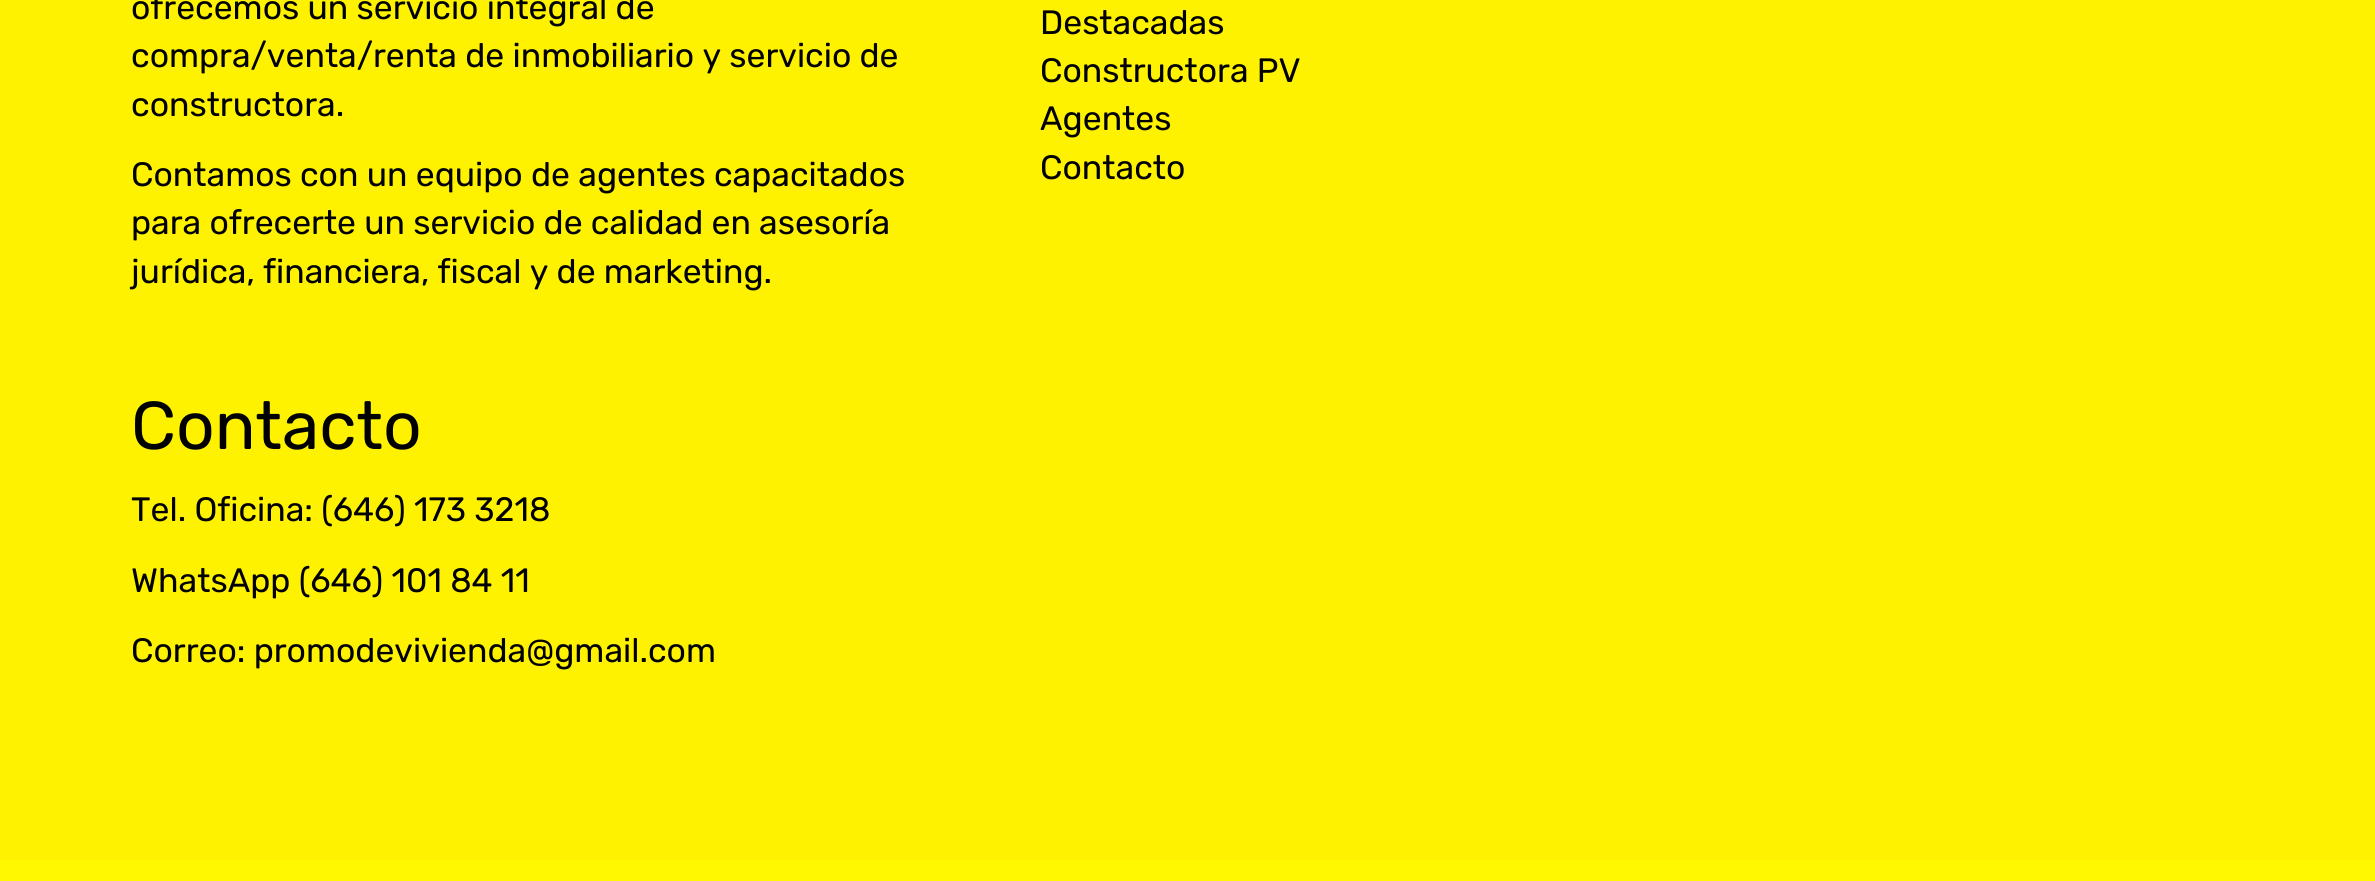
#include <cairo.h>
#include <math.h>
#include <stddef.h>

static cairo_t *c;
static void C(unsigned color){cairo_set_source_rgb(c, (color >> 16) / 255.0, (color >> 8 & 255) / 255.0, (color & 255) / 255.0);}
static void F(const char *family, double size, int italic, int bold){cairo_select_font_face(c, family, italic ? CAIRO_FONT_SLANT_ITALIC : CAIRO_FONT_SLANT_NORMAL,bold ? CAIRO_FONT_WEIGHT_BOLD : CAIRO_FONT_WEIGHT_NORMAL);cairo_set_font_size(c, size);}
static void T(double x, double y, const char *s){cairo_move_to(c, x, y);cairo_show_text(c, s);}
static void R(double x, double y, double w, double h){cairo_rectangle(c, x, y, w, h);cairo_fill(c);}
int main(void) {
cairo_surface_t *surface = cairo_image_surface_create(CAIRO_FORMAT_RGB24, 2375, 881);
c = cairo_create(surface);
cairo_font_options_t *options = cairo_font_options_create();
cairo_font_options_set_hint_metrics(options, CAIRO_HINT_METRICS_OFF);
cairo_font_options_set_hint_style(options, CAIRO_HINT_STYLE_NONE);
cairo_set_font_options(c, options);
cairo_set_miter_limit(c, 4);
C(0xfff200);
cairo_paint(c);
F("Rubik",33.75,0,0);
C(0x000000);
T(131,19,"ofrecemos un servicio integral de");
T(131,67,"compra/venta/renta de inmobiliario y servicio de");
T(131,116,"constructora.");
T(131,186,"Contamos con un equipo de agentes capacitados");
T(131,234,"para ofrecerte un servicio de calidad en asesoría");
T(131,283,"jurídica, financiera, fiscal y de marketing.");
F("Rubik",67.5,0,0);
T(131,449,"Contacto");
F("Rubik",33.75,0,0);
T(131,521,"Tel. Oficina: (646) 173 3218");
T(131,592,"WhatsApp (646) 101 84 11");
T(131,662,"Correo: promodevivienda@gmail.com");
T(1040,34,"Destacadas");
T(1040,82,"Constructora PV");
T(1040,130,"Agentes");
T(1040,179,"Contacto");
C(0xfff800);
R(0,860,2375,21);
cairo_surface_write_to_png(surface, "o.png");
cairo_font_options_destroy(options);
cairo_destroy(c);
cairo_surface_destroy(surface);
return 0;
}
